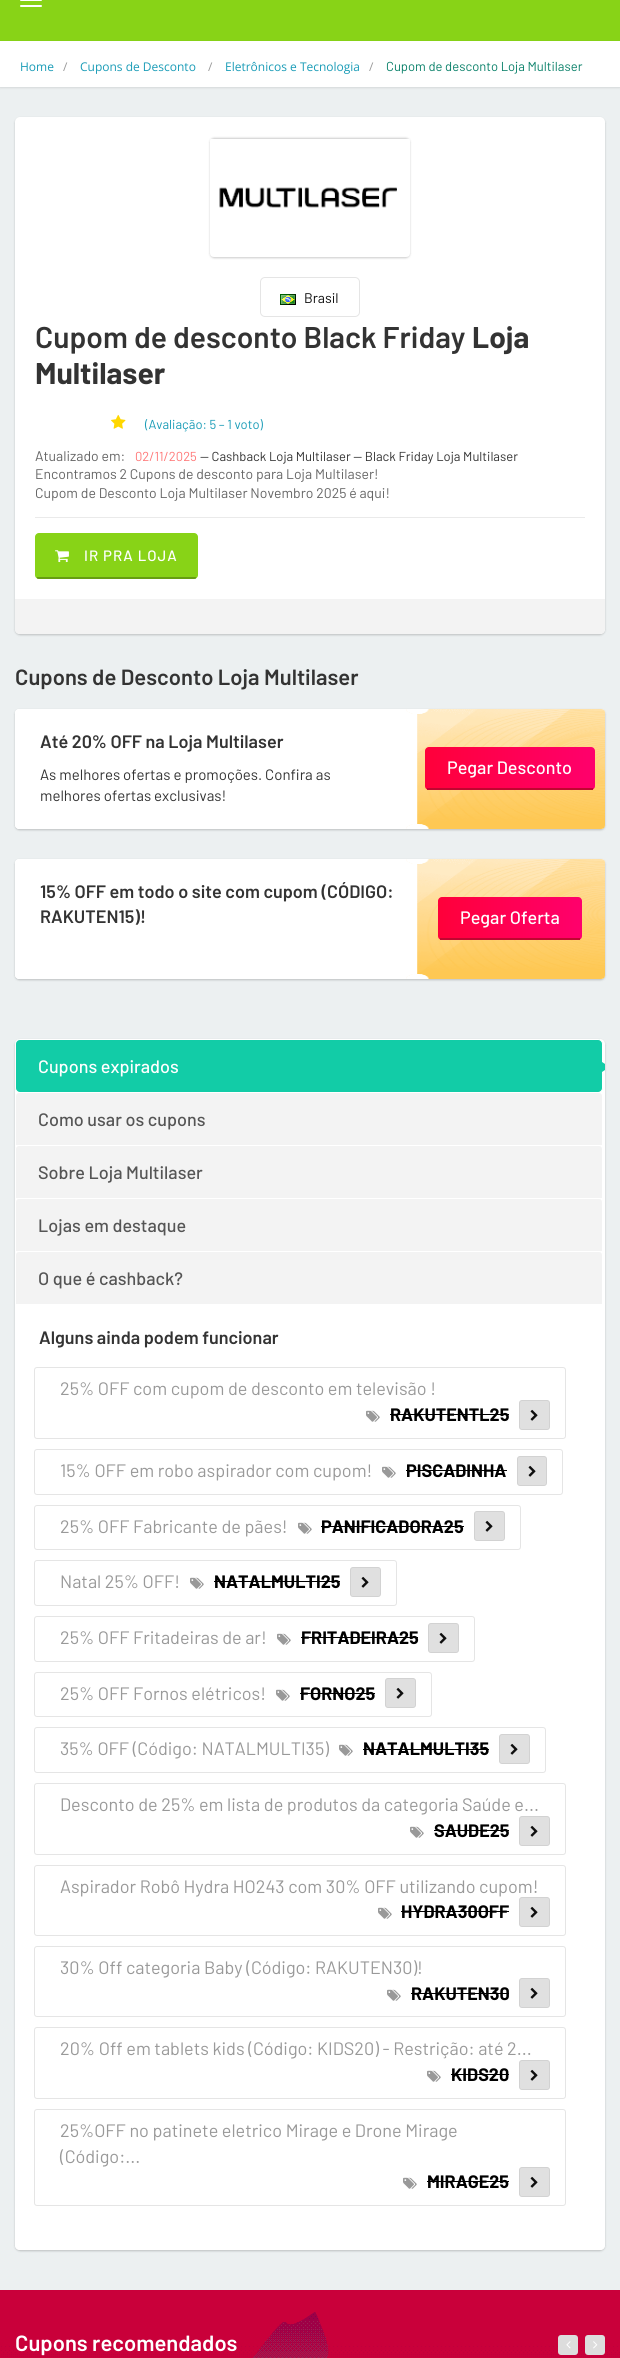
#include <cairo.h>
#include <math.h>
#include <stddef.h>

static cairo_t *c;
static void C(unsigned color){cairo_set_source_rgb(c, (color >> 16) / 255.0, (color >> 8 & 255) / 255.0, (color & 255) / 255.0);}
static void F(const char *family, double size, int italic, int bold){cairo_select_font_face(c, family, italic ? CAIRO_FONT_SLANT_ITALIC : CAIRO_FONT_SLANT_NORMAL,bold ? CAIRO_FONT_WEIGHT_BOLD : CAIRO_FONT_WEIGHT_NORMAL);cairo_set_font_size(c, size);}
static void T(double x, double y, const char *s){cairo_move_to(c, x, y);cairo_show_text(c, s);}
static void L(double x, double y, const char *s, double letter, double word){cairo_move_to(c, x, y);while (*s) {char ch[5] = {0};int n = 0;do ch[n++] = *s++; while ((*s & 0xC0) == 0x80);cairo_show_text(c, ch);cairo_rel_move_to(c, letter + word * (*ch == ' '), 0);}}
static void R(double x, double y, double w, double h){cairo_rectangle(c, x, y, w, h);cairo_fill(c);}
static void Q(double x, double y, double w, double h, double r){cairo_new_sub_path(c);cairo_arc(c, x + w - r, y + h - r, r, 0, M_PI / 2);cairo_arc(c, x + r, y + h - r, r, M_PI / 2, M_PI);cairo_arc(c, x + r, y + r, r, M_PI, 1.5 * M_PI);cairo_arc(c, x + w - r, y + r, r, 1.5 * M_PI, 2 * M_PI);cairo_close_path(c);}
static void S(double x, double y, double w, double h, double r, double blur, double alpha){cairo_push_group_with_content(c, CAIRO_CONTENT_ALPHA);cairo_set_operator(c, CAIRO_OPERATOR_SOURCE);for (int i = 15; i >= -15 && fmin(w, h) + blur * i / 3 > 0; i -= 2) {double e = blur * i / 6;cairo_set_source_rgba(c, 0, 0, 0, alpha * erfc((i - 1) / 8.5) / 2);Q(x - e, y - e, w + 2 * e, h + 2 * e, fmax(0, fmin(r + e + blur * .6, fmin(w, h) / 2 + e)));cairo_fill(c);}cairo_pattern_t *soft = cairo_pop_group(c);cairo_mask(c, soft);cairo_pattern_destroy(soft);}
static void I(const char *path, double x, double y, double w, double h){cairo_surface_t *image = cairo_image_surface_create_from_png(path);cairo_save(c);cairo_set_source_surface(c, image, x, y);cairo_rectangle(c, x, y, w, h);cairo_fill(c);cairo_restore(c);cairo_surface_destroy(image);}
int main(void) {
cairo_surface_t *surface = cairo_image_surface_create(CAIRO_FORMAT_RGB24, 620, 2358);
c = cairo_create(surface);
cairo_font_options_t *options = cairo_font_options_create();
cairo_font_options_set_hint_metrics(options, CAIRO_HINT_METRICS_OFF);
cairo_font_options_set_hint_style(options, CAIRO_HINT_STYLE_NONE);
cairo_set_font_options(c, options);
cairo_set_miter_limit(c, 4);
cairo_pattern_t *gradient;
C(0xecf0f1);
cairo_paint(c);
C(0x88d317);
R(0,0,620,41);
C(0xffffff);
Q(20,-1,22,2,1);
cairo_fill(c);
Q(20,5,22,2,1);
cairo_fill(c);
C(0x000000);
S(0,42,620,46,0,1,.1);
C(0xffffff);
R(0,41,620,46);
F("Open Sans",12,0,0);
C(0x1a9cb7);
T(20,71,"Home");
C(0x999999);
T(63,71,"/");
C(0x1a9cb7);
T(80,71,"Cupons de Desconto");
C(0x999999);
T(208,71,"/");
C(0x1a9cb7);
T(225,71,"Eletrônicos e Tecnologia");
C(0x999999);
T(369,71,"/");
F("Barlow",13,0,0);
C(0x0b816a);
T(386,71,"Cupom de desconto Loja Multilaser");
C(0x000000);
S(15,118,590,517,5,1,.2);
C(0xffffff);
Q(15,117,590,517,5);
cairo_fill(c);
C(0x000000);
S(210,138,200,120,4,1,.2);
I("1.png",210,139,200,118);
Q(260.5,277.5,99,39,4.5);
C(0xe5e5e5);
cairo_set_line_width(c,1);
cairo_stroke(c);
I("2.png",280,294,16,11);
F("Barlow",14,0,0);
C(0x0f0f0f);
T(304,303,"Brasil");
F("Barlow SemiBold",30,0,0);
C(0x333333);
T(35,348,"Cupom de desconto Black Friday");
F("Barlow",30,0,1);
T(472,348,"Loja");
T(35,384,"Multilaser");
I("3.png",111,414,15,15);
F("Barlow",13,0,0);
C(0x1a9cb7);
T(145,429,"(Avaliação: 5 – 1 voto)");
F("Barlow",14,0,0);
C(0x666666);
T(35,461,"Atualizado em:");
F("Barlow",13,0,0);
C(0xff7878);
T(135,461,"02/11/2025");
C(0x333333);
T(200,461,"— Cashback Loja Multilaser — Black Friday Loja Multilaser");
F("Barlow",14,0,0);
C(0x666666);
T(35,479,"Encontramos 2 Cupons de desconto para Loja Multilaser!");
T(35,498,"Cupom de Desconto Loja Multilaser Novembro 2025 é aqui!");
C(0xeaeaea);
R(35,517,550,1);
C(0x88d317);
Q(35,533,163,46,4);
cairo_fill(c);
cairo_set_source_rgba(c,0,0,0,0.25);
R(37,577,159,2);
I("4.png",55,550,14,13);
F("Barlow Medium",15,0,0);
C(0xffffff);
L(84,561,"IR PRA LOJA",1,0);
C(0xf3f3f3);
cairo_new_path(c);
cairo_move_to(c,15,599);
cairo_line_to(c,605,599);
cairo_line_to(c,605,629);
cairo_curve_to(c,605,632,603,634,600,634);
cairo_line_to(c,20,634);
cairo_curve_to(c,17,634,15,632,15,629);
cairo_close_path(c);
cairo_fill(c);
F("Barlow SemiBold",22,0,0);
C(0x333333);
T(15,685,"Cupons de Desconto Loja Multilaser");
C(0x000000);
S(15,710,590,120,4,1,.2);
C(0xffffff);
Q(15,709,590,120,4);
cairo_fill(c);
cairo_new_path(c);
cairo_move_to(c,19,709);
cairo_line_to(c,405,709);
cairo_line_to(c,405,829);
cairo_line_to(c,19,829);
cairo_curve_to(c,17,829,15,827,15,825);
cairo_line_to(c,15,713);
cairo_curve_to(c,15,711,17,709,19,709);
cairo_close_path(c);
cairo_fill(c);
F("Barlow SemiBold",18,0,0);
C(0x333333);
T(40,748,"Até 20% OFF na Loja Multilaser");
F("Barlow",15,0,0);
T(40,780,"As melhores ofertas e promoções. Confira as");
T(40,801,"melhores ofertas exclusivas!");
I("5.png",405,709,200,120);
gradient = cairo_pattern_create_linear(595,768,425,768);
cairo_pattern_add_color_stop_rgba(gradient,0,1,0,0.424,1);
cairo_pattern_add_color_stop_rgba(gradient,1,1,0,0.227,1);
cairo_set_source(c,gradient);
cairo_pattern_destroy(gradient);
Q(425,747,170,43,4);
cairo_fill(c);
C(0xbf0630);
R(427,788,166,2);
F("Barlow Medium",18,0,0);
C(0xffffff);
T(447,774,"Pegar Desconto");
C(0x000000);
S(15,860,590,120,4,1,.2);
C(0xffffff);
Q(15,859,590,120,4);
cairo_fill(c);
cairo_new_path(c);
cairo_move_to(c,19,859);
cairo_line_to(c,405,859);
cairo_line_to(c,405,979);
cairo_line_to(c,19,979);
cairo_curve_to(c,17,979,15,977,15,975);
cairo_line_to(c,15,863);
cairo_curve_to(c,15,861,17,859,19,859);
cairo_close_path(c);
cairo_fill(c);
F("Barlow SemiBold",18,0,0);
C(0x333333);
T(40,898,"15% OFF em todo o site com cupom (CÓDIGO:");
T(40,923,"RAKUTEN15)!");
I("6.png",405,859,200,120);
gradient = cairo_pattern_create_linear(582,918,438,918);
cairo_pattern_add_color_stop_rgba(gradient,0,1,0,0.424,1);
cairo_pattern_add_color_stop_rgba(gradient,1,1,0,0.227,1);
cairo_set_source(c,gradient);
cairo_pattern_destroy(gradient);
Q(438,897,144,43,4);
cairo_fill(c);
C(0xbf0630);
R(440,938,140,2);
F("Barlow Medium",18,0,0);
C(0xffffff);
T(460,924,"Pegar Oferta");
C(0x000000);
S(15,1040,590,1211,5,1,.2);
C(0xffffff);
Q(15,1039,590,1211,5);
cairo_fill(c);
C(0x12cca7);
Q(15.5,1039.5,587,53,4.5);
cairo_fill_preserve(c);
C(0xffffff);
cairo_stroke(c);
T(38,1073,"Cupons expirados");
C(0x12cca7);
cairo_new_path(c);
cairo_move_to(c,599,1074);
cairo_line_to(c,599,1060);
cairo_line_to(c,605,1064);
cairo_line_to(c,605,1070);
cairo_close_path(c);
cairo_fill(c);
C(0xf3f3f3);
cairo_new_path(c);
cairo_move_to(c,19,1092.5);
cairo_line_to(c,599,1092.5);
cairo_curve_to(c,601,1092.5,602.5,1094,602.5,1096);
cairo_line_to(c,602.5,1145.5);
cairo_line_to(c,15.5,1145.5);
cairo_line_to(c,15.5,1096);
cairo_curve_to(c,15.5,1094,17,1092.5,19,1092.5);
cairo_close_path(c);
cairo_fill_preserve(c);
C(0xffffff);
cairo_stroke(c);
C(0x555555);
T(38,1126,"Como usar os cupons");
C(0xf3f3f3);
cairo_new_path(c);
cairo_move_to(c,19,1145.5);
cairo_line_to(c,599,1145.5);
cairo_curve_to(c,601,1145.5,602.5,1147,602.5,1149);
cairo_line_to(c,602.5,1198.5);
cairo_line_to(c,15.5,1198.5);
cairo_line_to(c,15.5,1149);
cairo_curve_to(c,15.5,1147,17,1145.5,19,1145.5);
cairo_close_path(c);
cairo_fill_preserve(c);
C(0xffffff);
cairo_stroke(c);
C(0x555555);
T(38,1179,"Sobre Loja Multilaser");
C(0xf3f3f3);
cairo_new_path(c);
cairo_move_to(c,19,1198.5);
cairo_line_to(c,599,1198.5);
cairo_curve_to(c,601,1198.5,602.5,1200,602.5,1202);
cairo_line_to(c,602.5,1251.5);
cairo_line_to(c,15.5,1251.5);
cairo_line_to(c,15.5,1202);
cairo_curve_to(c,15.5,1200,17,1198.5,19,1198.5);
cairo_close_path(c);
cairo_fill_preserve(c);
C(0xffffff);
cairo_stroke(c);
C(0x555555);
T(38,1232,"Lojas em destaque");
C(0xf3f3f3);
cairo_new_path(c);
cairo_move_to(c,19,1251.5);
cairo_line_to(c,599,1251.5);
cairo_curve_to(c,601,1251.5,602.5,1253,602.5,1255);
cairo_line_to(c,602.5,1304.5);
cairo_line_to(c,15.5,1304.5);
cairo_line_to(c,15.5,1255);
cairo_curve_to(c,15.5,1253,17,1251.5,19,1251.5);
cairo_close_path(c);
cairo_fill_preserve(c);
C(0xffffff);
cairo_stroke(c);
C(0x555555);
T(38,1285,"O que é cashback?");
C(0xffffff);
cairo_new_path(c);
cairo_move_to(c,15,1304);
cairo_line_to(c,605,1304);
cairo_line_to(c,605,2245);
cairo_curve_to(c,605,2248,603,2250,600,2250);
cairo_line_to(c,20,2250);
cairo_curve_to(c,17,2250,15,2248,15,2245);
cairo_close_path(c);
cairo_fill(c);
F("Barlow SemiBold",18,0,0);
C(0x333333);
T(39,1344,"Alguns ainda podem funcionar");
Q(34.5,1367.5,531,71,2.5);
C(0xe5e5e5);
cairo_stroke(c);
F("Barlow",18,0,0);
C(0x999999);
T(60,1395,"25% OFF com cupom de desconto em televisão !");
I("7.png",366,1410,14,12);
F("Barlow",18,0,1);
C(0x000000);
T(390,1421,"RAKUTENTL25");
R(390,1414,119,1);
C(0xe0e0e0);
Q(519.5,1400.5,30,29,2.5);
cairo_fill_preserve(c);
C(0xd2d2d2);
cairo_stroke(c);
I("8.png",530,1409,8,12);
Q(34.5,1449.5,528,45,2.5);
C(0xe5e5e5);
cairo_stroke(c);
F("Barlow",18,0,0);
C(0x999999);
T(60,1477,"15% OFF em robo aspirador com cupom!");
I("7.png",382,1466,14,12);
F("Barlow",18,0,1);
C(0x000000);
T(406,1477,"PISCADINHA");
R(406,1470,101,1);
C(0xe0e0e0);
Q(517.5,1456.5,29,29,2.5);
cairo_fill_preserve(c);
C(0xd2d2d2);
cairo_stroke(c);
I("8.png",528,1465,8,12);
Q(34.5,1505.5,486,44,2.5);
C(0xe5e5e5);
cairo_stroke(c);
F("Barlow",18,0,0);
C(0x999999);
T(60,1533,"25% OFF Fabricante de pães!");
I("7.png",298,1522,14,12);
F("Barlow",18,0,1);
C(0x000000);
T(321,1533,"PANIFICADORA25");
R(321,1526,143,1);
C(0xe0e0e0);
Q(474.5,1511.5,30,29,2.5);
cairo_fill_preserve(c);
C(0xd2d2d2);
cairo_stroke(c);
I("8.png",485,1520,8,12);
Q(34.5,1560.5,362,45,2.5);
C(0xe5e5e5);
cairo_stroke(c);
F("Barlow",18,0,0);
C(0x999999);
T(60,1588,"Natal 25% OFF!");
I("7.png",190,1577,14,12);
F("Barlow",18,0,1);
C(0x000000);
T(214,1588,"NATALMULTI25");
R(214,1581,126,1);
C(0xe0e0e0);
Q(350.5,1567.5,30,29,2.5);
cairo_fill_preserve(c);
C(0xd2d2d2);
cairo_stroke(c);
I("8.png",361,1576,8,12);
Q(34.5,1616.5,440,45,2.5);
C(0xe5e5e5);
cairo_stroke(c);
F("Barlow",18,0,0);
C(0x999999);
T(60,1644,"25% OFF Fritadeiras de ar!");
I("7.png",277,1633,14,12);
F("Barlow",18,0,1);
C(0x000000);
T(301,1644,"FRITADEIRA25");
R(301,1637,117,1);
C(0xe0e0e0);
Q(428.5,1623.5,30,29,2.5);
cairo_fill_preserve(c);
C(0xd2d2d2);
cairo_stroke(c);
I("8.png",439,1632,8,12);
Q(34.5,1672.5,397,44,2.5);
C(0xe5e5e5);
cairo_stroke(c);
F("Barlow",18,0,0);
C(0x999999);
T(60,1700,"25% OFF Fornos elétricos!");
I("7.png",276,1689,14,12);
F("Barlow",18,0,1);
C(0x000000);
T(300,1700,"FORNO25");
R(300,1693,75,1);
C(0xe0e0e0);
Q(385.5,1678.5,30,29,2.5);
cairo_fill_preserve(c);
C(0xd2d2d2);
cairo_stroke(c);
I("8.png",396,1687,8,12);
Q(34.5,1727.5,511,45,2.5);
C(0xe5e5e5);
cairo_stroke(c);
F("Barlow",18,0,0);
C(0x999999);
T(60,1755,"35% OFF (Código: NATALMULTI35)");
I("7.png",339,1744,14,12);
F("Barlow",18,0,1);
C(0x000000);
T(363,1755,"NATALMULTI35");
R(363,1749,126,1);
C(0xe0e0e0);
Q(499.5,1734.5,30,29,2.5);
cairo_fill_preserve(c);
C(0xd2d2d2);
cairo_stroke(c);
I("8.png",510,1743,8,12);
Q(34.5,1783.5,531,71,2.5);
C(0xe5e5e5);
cairo_stroke(c);
F("Barlow",18,0,0);
C(0x999999);
T(60,1811,"Desconto de 25% em lista de produtos da categoria Saúde e...");
I("7.png",410,1826,14,12);
F("Barlow",18,0,1);
C(0x000000);
T(434,1837,"SAUDE25");
R(434,1830,75,1);
C(0xe0e0e0);
Q(519.5,1816.5,30,29,2.5);
cairo_fill_preserve(c);
C(0xd2d2d2);
cairo_stroke(c);
I("8.png",530,1825,8,12);
Q(34.5,1865.5,531,70,2.5);
C(0xe5e5e5);
cairo_stroke(c);
F("Barlow",18,0,0);
C(0x999999);
T(60,1893,"Aspirador Robô Hydra HO243 com 30% OFF utilizando cupom!");
I("7.png",378,1907,14,12);
F("Barlow",18,0,1);
C(0x000000);
T(401,1918,"HYDRA30OFF");
R(401,1911,108,1);
C(0xe0e0e0);
Q(519.5,1897.5,30,29,2.5);
cairo_fill_preserve(c);
C(0xd2d2d2);
cairo_stroke(c);
I("8.png",530,1906,8,12);
Q(34.5,1946.5,531,70,2.5);
C(0xe5e5e5);
cairo_stroke(c);
F("Barlow",18,0,0);
C(0x999999);
T(60,1974,"30% Off categoria Baby (Código: RAKUTEN30)!");
I("7.png",387,1989,14,12);
F("Barlow",18,0,1);
C(0x000000);
T(411,2000,"RAKUTEN30");
R(411,1993,98,1);
C(0xe0e0e0);
Q(519.5,1978.5,30,29,2.5);
cairo_fill_preserve(c);
C(0xd2d2d2);
cairo_stroke(c);
I("8.png",530,1987,8,12);
Q(34.5,2027.5,531,71,2.5);
C(0xe5e5e5);
cairo_stroke(c);
F("Barlow",18,0,0);
C(0x999999);
T(60,2055,"20% Off em tablets kids (Código: KIDS20) - Restrição: até 2...");
I("7.png",427,2070,14,12);
F("Barlow",18,0,1);
C(0x000000);
T(451,2081,"KIDS20");
R(451,2074,58,1);
C(0xe0e0e0);
Q(519.5,2060.5,30,29,2.5);
cairo_fill_preserve(c);
C(0xd2d2d2);
cairo_stroke(c);
I("8.png",530,2069,8,12);
Q(34.5,2109.5,531,96,2.5);
C(0xe5e5e5);
cairo_stroke(c);
F("Barlow",18,0,0);
C(0x999999);
T(60,2137,"25%OFF no patinete eletrico Mirage e Drone Mirage");
T(60,2163,"(Código:...");
I("7.png",403,2177,14,12);
F("Barlow",18,0,1);
C(0x000000);
T(427,2188,"MIRAGE25");
R(427,2181,82,1);
C(0xe0e0e0);
Q(519.5,2167.5,30,29,2.5);
cairo_fill_preserve(c);
C(0xd2d2d2);
cairo_stroke(c);
I("8.png",530,2176,8,12);
I("9.png",0,2290,620,68);
F("Barlow SemiBold",22,0,0);
C(0xffffff);
T(15,2351,"Cupons recomendados");
C(0xdddddd);
Q(558,2335,20,20,3);
cairo_fill(c);
I("10.png",566,2341,5,8);
Q(585,2335,20,20,3);
cairo_fill(c);
I("11.png",593,2341,5,8);
cairo_surface_write_to_png(surface, "o.png");
cairo_font_options_destroy(options);
cairo_destroy(c);
cairo_surface_destroy(surface);
return 0;
}
